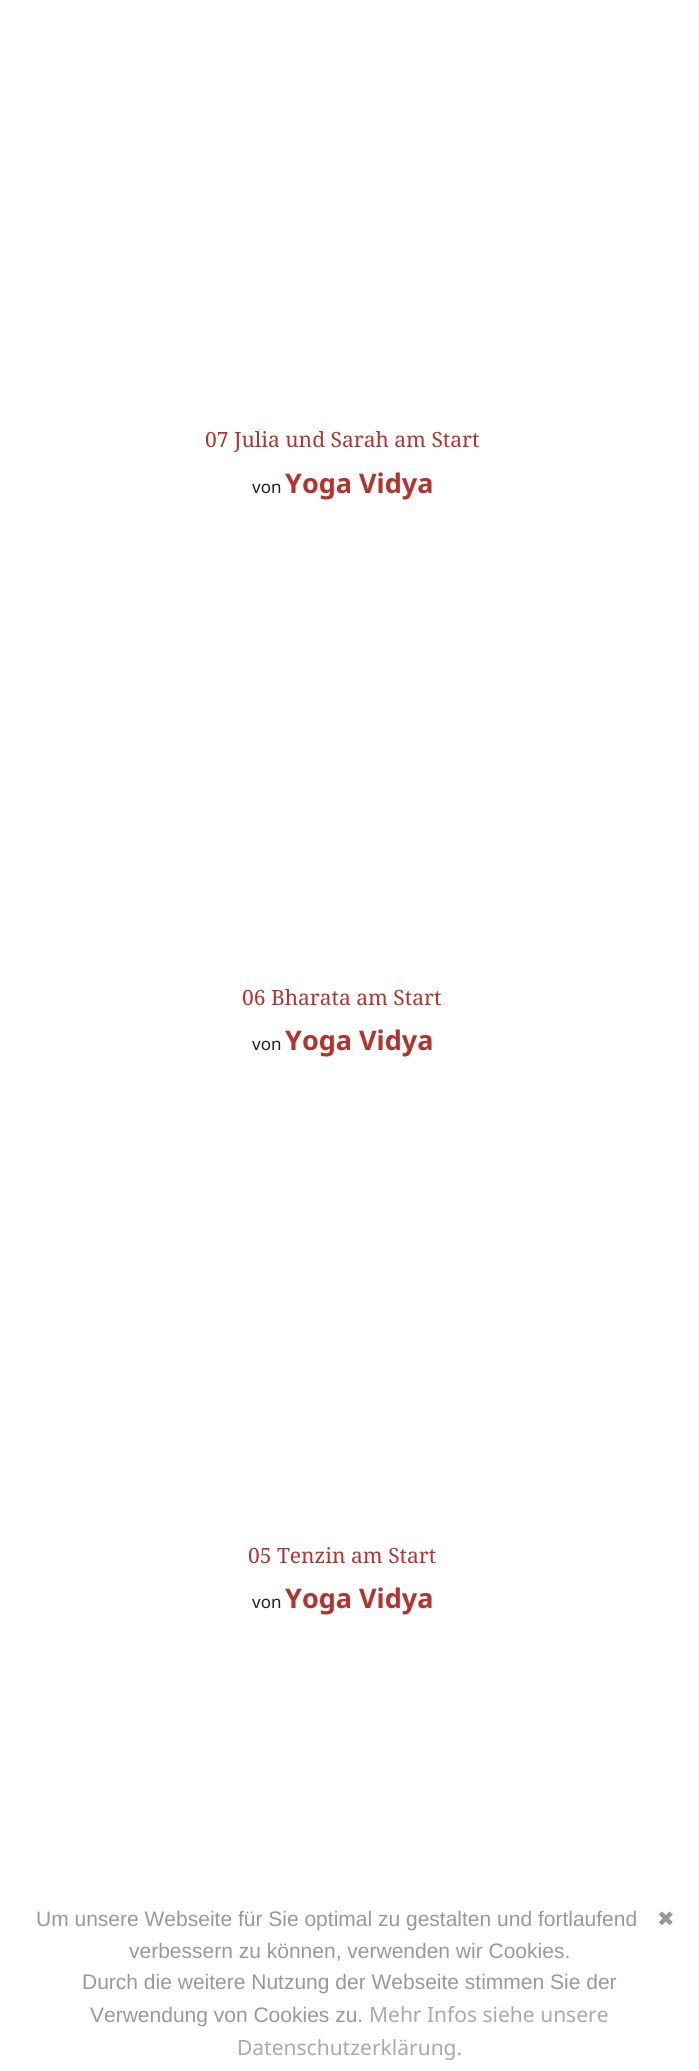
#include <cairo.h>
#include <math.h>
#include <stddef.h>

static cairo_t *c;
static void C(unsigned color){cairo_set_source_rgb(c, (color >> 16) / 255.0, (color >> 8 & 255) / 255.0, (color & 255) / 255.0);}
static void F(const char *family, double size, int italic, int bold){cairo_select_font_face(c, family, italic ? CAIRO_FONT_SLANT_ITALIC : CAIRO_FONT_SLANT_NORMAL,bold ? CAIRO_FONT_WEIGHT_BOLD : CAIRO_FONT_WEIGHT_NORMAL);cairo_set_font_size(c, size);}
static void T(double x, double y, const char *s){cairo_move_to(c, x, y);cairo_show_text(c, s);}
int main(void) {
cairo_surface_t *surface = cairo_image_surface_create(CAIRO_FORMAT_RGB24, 699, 2071);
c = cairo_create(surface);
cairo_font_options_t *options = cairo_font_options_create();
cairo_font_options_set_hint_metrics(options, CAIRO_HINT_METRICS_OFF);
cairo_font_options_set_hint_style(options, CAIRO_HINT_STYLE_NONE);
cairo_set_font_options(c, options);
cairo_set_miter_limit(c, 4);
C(0xffffff);
cairo_paint(c);
F("Noto Serif",21,0,0);
C(0xb3342e);
T(205,447,"07 Julia und Sarah am Start");
F("Noto Sans",17,0,0);
C(0x1f1f1f);
T(252,493,"von");
F("Noto Sans",27,0,1);
C(0xb3342e);
T(285,493,"Yoga Vidya");
F("Noto Serif",21,0,0);
T(242,1005,"06 Bharata am Start");
F("Noto Sans",17,0,0);
C(0x1f1f1f);
T(252,1050,"von");
F("Noto Sans",27,0,1);
C(0xb3342e);
T(285,1050,"Yoga Vidya");
F("Noto Serif",21,0,0);
T(248,1563,"05 Tenzin am Start");
F("Noto Sans",17,0,0);
C(0x1f1f1f);
T(252,1608,"von");
F("Noto Sans",27,0,1);
C(0xb3342e);
T(285,1608,"Yoga Vidya");
F("Liberation Sans",21,0,0);
C(0x999999);
T(36,1926,"Um unsere Webseite für Sie optimal zu gestalten und fortlaufend");
F("DejaVu Sans",21,0,0);
T(657,1926,"✖");
F("Liberation Sans",21,0,0);
T(129,1958,"verbessern zu können, verwenden wir Cookies.");
T(82,1989,"Durch die weitere Nutzung der Webseite stimmen Sie der");
T(90,2022,"Verwendung von Cookies zu.");
F("Noto Sans",21,0,0);
C(0xaaaaaa);
T(369,2022,"Mehr Infos siehe unsere");
T(237,2055,"Datenschutzerklärung.");
cairo_surface_write_to_png(surface, "o.png");
cairo_font_options_destroy(options);
cairo_destroy(c);
cairo_surface_destroy(surface);
return 0;
}
